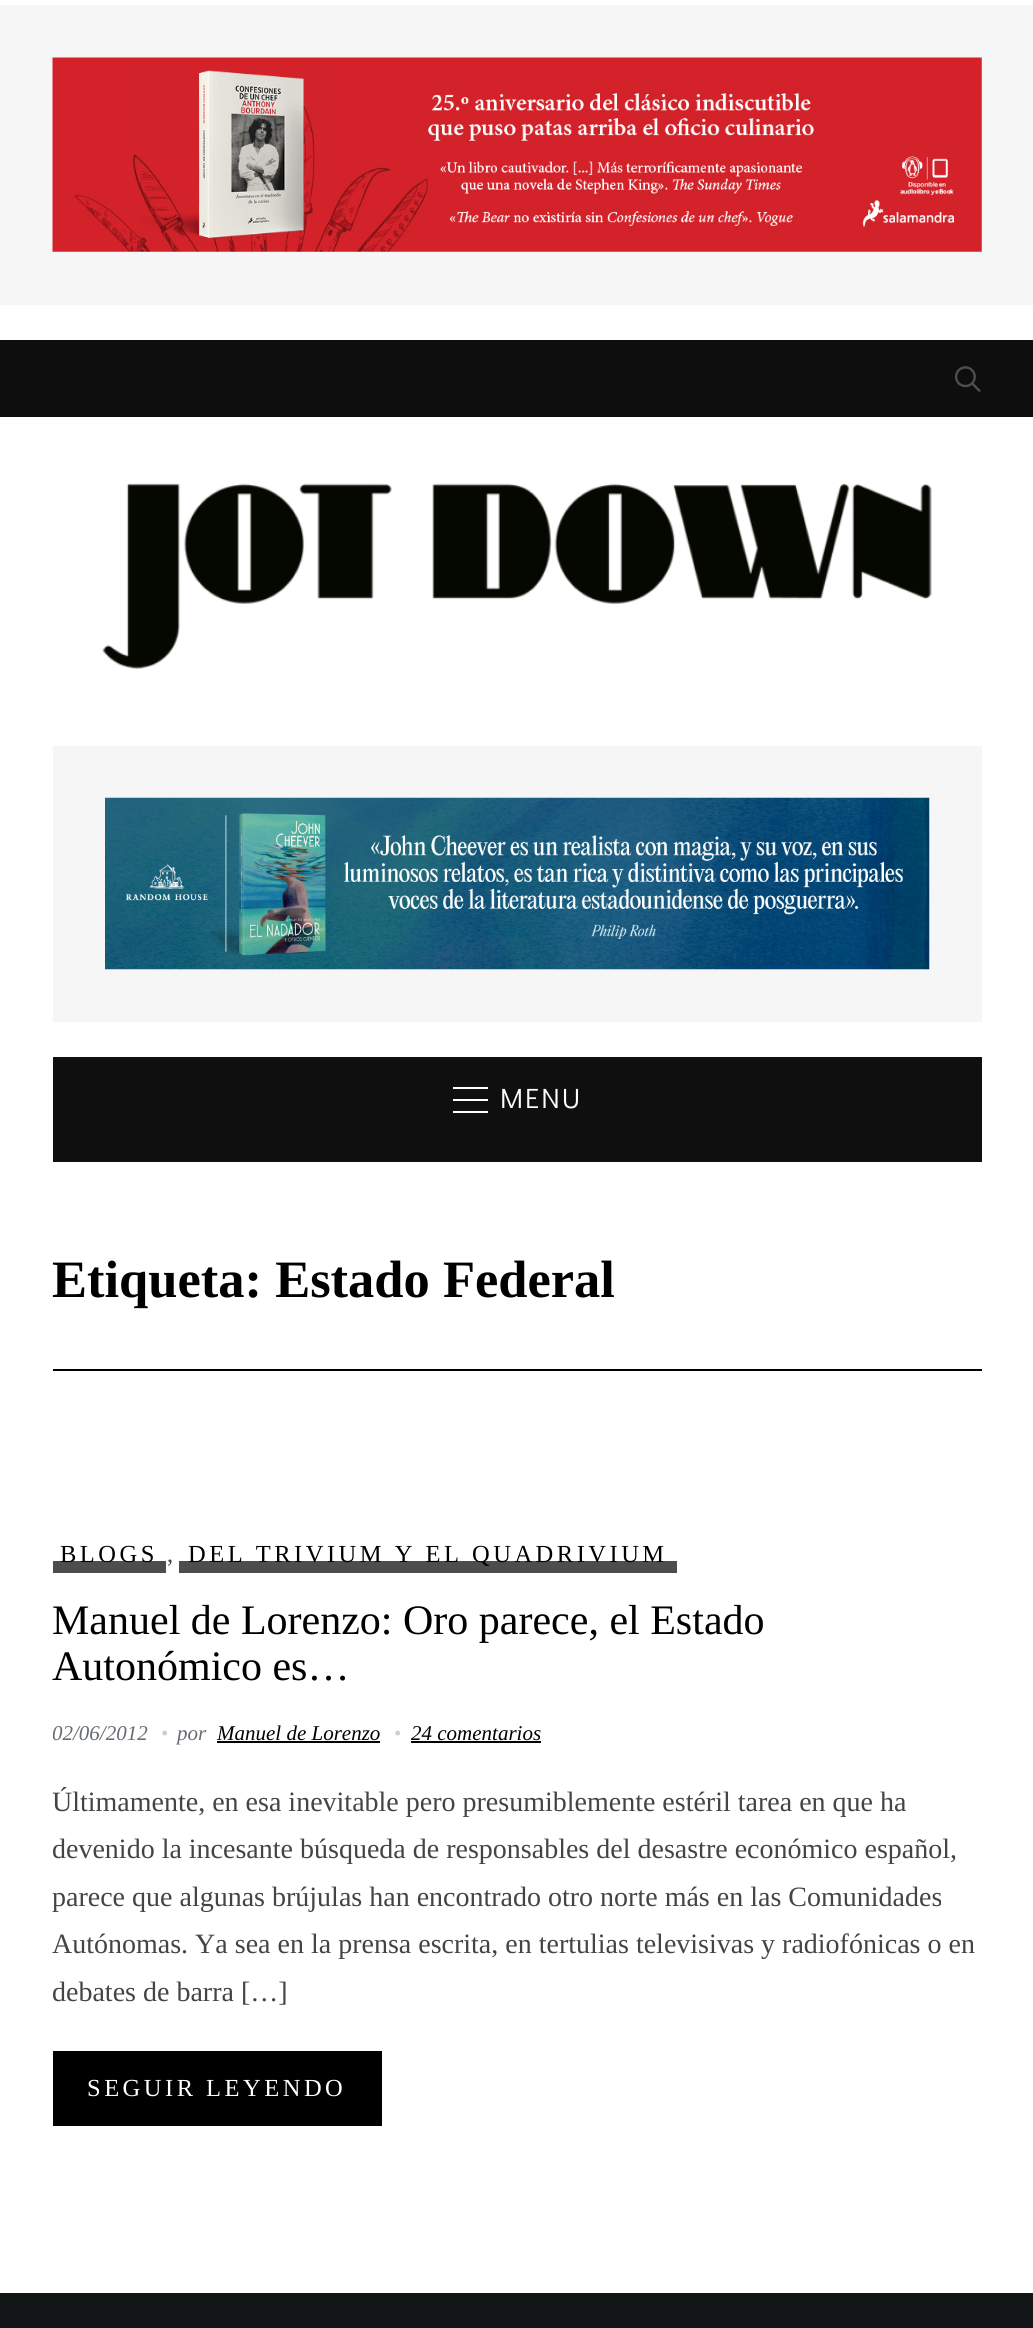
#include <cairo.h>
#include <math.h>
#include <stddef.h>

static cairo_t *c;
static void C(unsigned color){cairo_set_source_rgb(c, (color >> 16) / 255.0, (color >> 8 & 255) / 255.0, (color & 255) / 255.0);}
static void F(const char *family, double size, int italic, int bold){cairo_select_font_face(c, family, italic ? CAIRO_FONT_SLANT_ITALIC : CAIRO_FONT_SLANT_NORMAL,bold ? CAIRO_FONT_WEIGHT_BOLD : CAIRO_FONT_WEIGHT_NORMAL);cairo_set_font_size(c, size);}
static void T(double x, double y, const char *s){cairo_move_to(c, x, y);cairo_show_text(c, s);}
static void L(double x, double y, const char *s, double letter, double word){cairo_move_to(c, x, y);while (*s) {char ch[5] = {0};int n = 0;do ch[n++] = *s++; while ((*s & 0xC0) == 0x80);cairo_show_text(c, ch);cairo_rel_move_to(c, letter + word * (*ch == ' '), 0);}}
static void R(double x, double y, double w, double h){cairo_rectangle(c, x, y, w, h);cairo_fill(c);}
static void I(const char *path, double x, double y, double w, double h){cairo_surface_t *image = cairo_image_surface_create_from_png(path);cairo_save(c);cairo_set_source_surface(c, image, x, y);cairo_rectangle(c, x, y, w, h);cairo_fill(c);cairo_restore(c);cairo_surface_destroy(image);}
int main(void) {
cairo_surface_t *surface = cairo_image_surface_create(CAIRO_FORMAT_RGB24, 1033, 2328);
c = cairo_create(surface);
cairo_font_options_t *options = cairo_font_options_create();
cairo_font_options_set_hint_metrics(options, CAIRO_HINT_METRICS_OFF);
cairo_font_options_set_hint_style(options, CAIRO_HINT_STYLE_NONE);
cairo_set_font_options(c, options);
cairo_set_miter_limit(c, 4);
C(0xffffff);
cairo_paint(c);
C(0xf6f6f6);
R(0,5,1033,300);
I("1.png",52,57,930,195);
C(0x0f0e0e);
R(0,340,1033,77);
I("2.png",955,366,26,26);
I("3.png",102,483,830,186);
C(0xf6f6f6);
R(53,746,929,276);
I("4.png",105,797,825,173);
C(0x0f0f0f);
R(53,1057,929,105);
C(0xffffff);
R(453,1087,35,2);
R(453,1099,35,2);
R(453,1111,35,2);
F("Didact Gothic",28,0,0);
L(500,1108,"MENU",2,0);
C(0x000000);
R(53,1369,929,2);
F("Liberation Serif",52.5,0,1);
T(52,1297,"Etiqueta: Estado Federal");
C(0x4d4d4d);
R(53,1561,113,12);
F("Liberation Serif",24.5,0,0);
C(0x000000);
L(60,1562,"BLOGS",3.5,0);
C(0x444444);
T(167,1562,",");
C(0x4d4d4d);
R(179,1561,498,12);
C(0x000000);
L(188,1562,"DEL TRIVIUM Y EL QUADRIVIUM",3.5,0);
F("Liberation Serif",42,0,0);
T(52,1634,"Manuel de Lorenzo: Oro parece, el Estado");
T(52,1680,"Autonómico es…");
cairo_save(c);
cairo_rectangle(c,53,1535,929,591);
cairo_clip(c);
F("Liberation Serif",21,1,0);
C(0x676c71);
T(52,1740,"02/06/2012");
cairo_restore(c);
F("Liberation Serif",21,0,0);
C(0xcccfcf);
T(161,1740,"•");
F("Liberation Serif",21,1,0);
C(0x676c71);
T(177,1740,"por");
C(0x000000);
T(217,1740,"Manuel de Lorenzo");
R(217,1741,163,2);
F("Liberation Serif",21,0,0);
C(0xcccfcf);
T(394,1740,"•");
F("Liberation Serif",21,1,0);
C(0x000000);
T(411,1740,"24 comentarios");
R(411,1741,130,2);
F("Liberation Serif",28,0,0);
C(0x444444);
T(52,1811,"Últimamente, en esa inevitable pero presumiblemente estéril tarea en que ha");
cairo_save(c);
cairo_rectangle(c,53,1535,929,591);
cairo_clip(c);
T(52,1858,"devenido la incesante búsqueda de responsables del desastre económico español,");
cairo_restore(c);
T(52,1906,"parece que algunas brújulas han encontrado otro norte más en las Comunidades");
T(52,1953,"Autónomas. Ya sea en la prensa escrita, en tertulias televisivas y radiofónicas o en");
cairo_save(c);
cairo_rectangle(c,53,1535,929,591);
cairo_clip(c);
T(52,2001,"debates de barra […]");
cairo_restore(c);
C(0x000000);
R(53,2051,329,75);
F("Liberation Serif",24.5,0,0);
C(0xffffff);
L(87,2096,"SEGUIR LEYENDO",3.5,0);
C(0x121516);
R(0,2293,1033,35);
cairo_surface_write_to_png(surface, "o.png");
cairo_font_options_destroy(options);
cairo_destroy(c);
cairo_surface_destroy(surface);
return 0;
}
